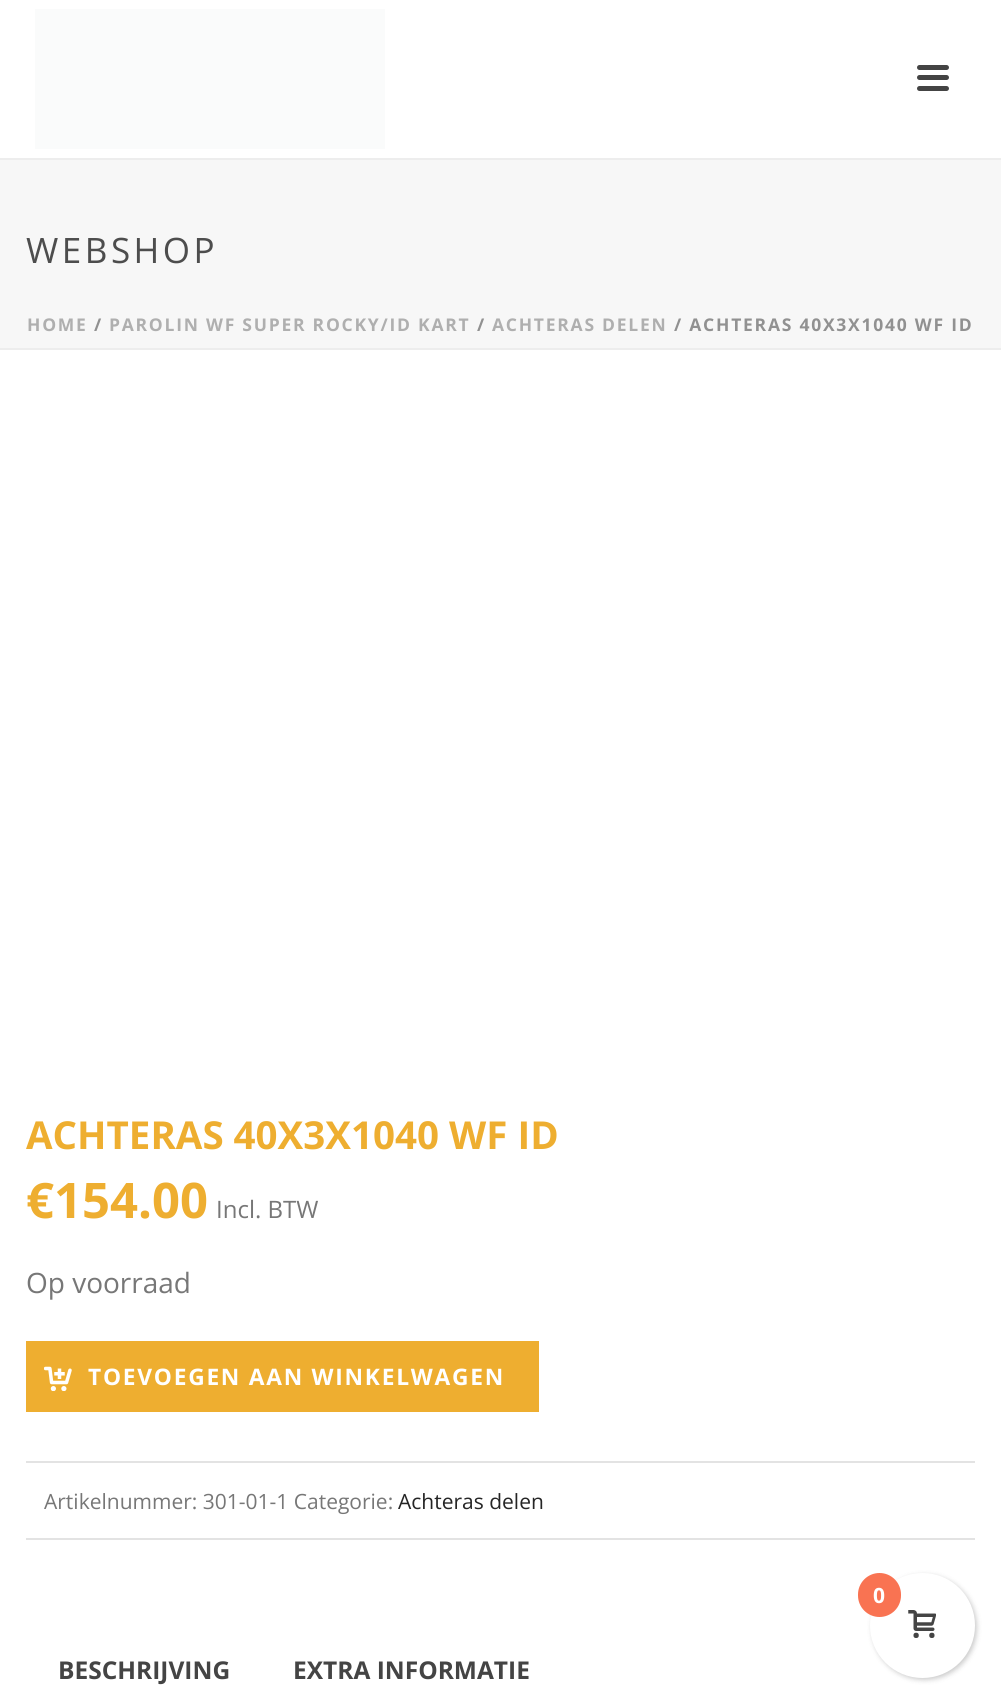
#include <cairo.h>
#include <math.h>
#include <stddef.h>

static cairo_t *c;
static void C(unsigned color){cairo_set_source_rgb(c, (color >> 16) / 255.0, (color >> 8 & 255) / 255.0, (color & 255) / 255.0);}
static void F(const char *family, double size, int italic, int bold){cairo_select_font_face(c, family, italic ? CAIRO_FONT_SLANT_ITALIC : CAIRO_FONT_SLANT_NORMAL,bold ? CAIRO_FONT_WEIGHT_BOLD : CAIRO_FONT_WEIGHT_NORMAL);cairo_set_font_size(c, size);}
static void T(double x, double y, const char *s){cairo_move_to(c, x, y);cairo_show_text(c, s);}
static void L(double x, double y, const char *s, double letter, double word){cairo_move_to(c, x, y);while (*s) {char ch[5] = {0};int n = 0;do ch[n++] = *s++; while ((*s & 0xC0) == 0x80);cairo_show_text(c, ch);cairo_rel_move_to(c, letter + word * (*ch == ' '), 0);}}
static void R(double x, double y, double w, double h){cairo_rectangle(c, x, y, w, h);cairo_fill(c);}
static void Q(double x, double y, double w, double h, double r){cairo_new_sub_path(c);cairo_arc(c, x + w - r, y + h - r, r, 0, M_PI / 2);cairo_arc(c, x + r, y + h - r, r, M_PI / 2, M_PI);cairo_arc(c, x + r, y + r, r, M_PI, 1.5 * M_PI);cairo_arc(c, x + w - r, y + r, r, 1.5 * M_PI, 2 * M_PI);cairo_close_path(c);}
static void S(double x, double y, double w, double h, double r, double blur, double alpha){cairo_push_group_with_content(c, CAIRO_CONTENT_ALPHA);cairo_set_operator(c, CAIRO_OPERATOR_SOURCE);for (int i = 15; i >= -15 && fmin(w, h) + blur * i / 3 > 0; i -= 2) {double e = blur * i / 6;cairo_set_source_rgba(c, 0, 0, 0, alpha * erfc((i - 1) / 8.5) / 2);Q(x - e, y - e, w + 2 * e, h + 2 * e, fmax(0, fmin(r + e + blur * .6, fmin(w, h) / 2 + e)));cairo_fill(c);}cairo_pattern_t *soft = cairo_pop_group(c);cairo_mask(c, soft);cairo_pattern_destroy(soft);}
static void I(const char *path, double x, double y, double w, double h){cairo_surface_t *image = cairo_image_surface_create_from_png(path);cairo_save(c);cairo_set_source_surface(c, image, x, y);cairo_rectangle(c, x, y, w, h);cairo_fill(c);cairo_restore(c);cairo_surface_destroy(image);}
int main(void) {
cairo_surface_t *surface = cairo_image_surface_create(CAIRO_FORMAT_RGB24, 1001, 1704);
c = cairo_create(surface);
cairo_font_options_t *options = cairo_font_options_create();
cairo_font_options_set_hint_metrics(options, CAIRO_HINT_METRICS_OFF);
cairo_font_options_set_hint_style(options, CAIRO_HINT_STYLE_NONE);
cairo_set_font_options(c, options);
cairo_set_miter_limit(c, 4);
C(0xffffff);
cairo_paint(c);
C(0xf7f7f7);
R(0,160,1001,188);
C(0xededed);
R(0,348,1001,2);
R(0,158,1001,2);
C(0xfafbfb);
R(35,9,350,140);
C(0x444444);
Q(917,65,32,5,2.5);
cairo_fill(c);
Q(917,75,32,5,2.5);
cairo_fill(c);
Q(917,86,32,5,2.5);
cairo_fill(c);
F("Open Sans",35,0,0);
C(0x4d4d4d);
L(26,263,"WEBSHOP",3.5,0);
F("Open Sans",17.5,0,1);
C(0xafafaf);
L(27,331,"HOME",1.75,0);
C(0x919191);
L(94,331,"/",1.75,0);
C(0xafafaf);
L(109,331,"PAROLIN WF SUPER ROCKY/ID KART",1.75,0);
C(0x919191);
L(477,331,"/",1.75,0);
C(0xafafaf);
L(492,331,"ACHTERAS DELEN",1.75,0);
C(0x919191);
L(674,331,"/ ACHTERAS 40X3X1040 WF ID",1.75,0);
F("Open Sans",38.5,0,1);
C(0xeeae30);
T(26,1149,"ACHTERAS 40X3X1040 WF ID");
F("Open Sans",49,0,1);
T(26,1218,"€154.00");
F("Open Sans",24,0,0);
C(0x777777);
T(216,1218,"Incl. BTW");
F("Open Sans",28,0,0);
T(26,1293,"Op voorraad");
C(0xeeae30);
R(26,1341,513,71);
I("1.png",44,1366,28,25);
F("Open Sans",22.75,0,1);
C(0xffffff);
L(88,1385,"TOEVOEGEN AAN WINKELWAGEN",1.75,0);
C(0xe3e3e3);
R(26,1461,949,2);
R(26,1538,949,2);
F("Open Sans",21,0,0);
C(0x777777);
T(44,1509,"Artikelnummer: 301-01-1 Categorie:");
C(0x252525);
T(398,1509,"Achteras delen");
F("Open Sans",24.5,0,1);
C(0x444444);
T(58,1679,"BESCHRIJVING");
T(293,1679,"EXTRA INFORMATIE");
C(0x000000);
S(872,1575,105,105,52.5,2.5,.2);
C(0xffffff);
cairo_arc(c,922.5,1625.5,52.5,0,2 * M_PI);
cairo_fill(c);
C(0xf97352);
Q(858,1573,43,44,21.5);
cairo_fill(c);
F("Open Sans",21,0,1);
C(0xffffff);
T(873,1603,"0");
I("2.png",908,1610,28,28);
cairo_surface_write_to_png(surface, "o.png");
cairo_font_options_destroy(options);
cairo_destroy(c);
cairo_surface_destroy(surface);
return 0;
}
